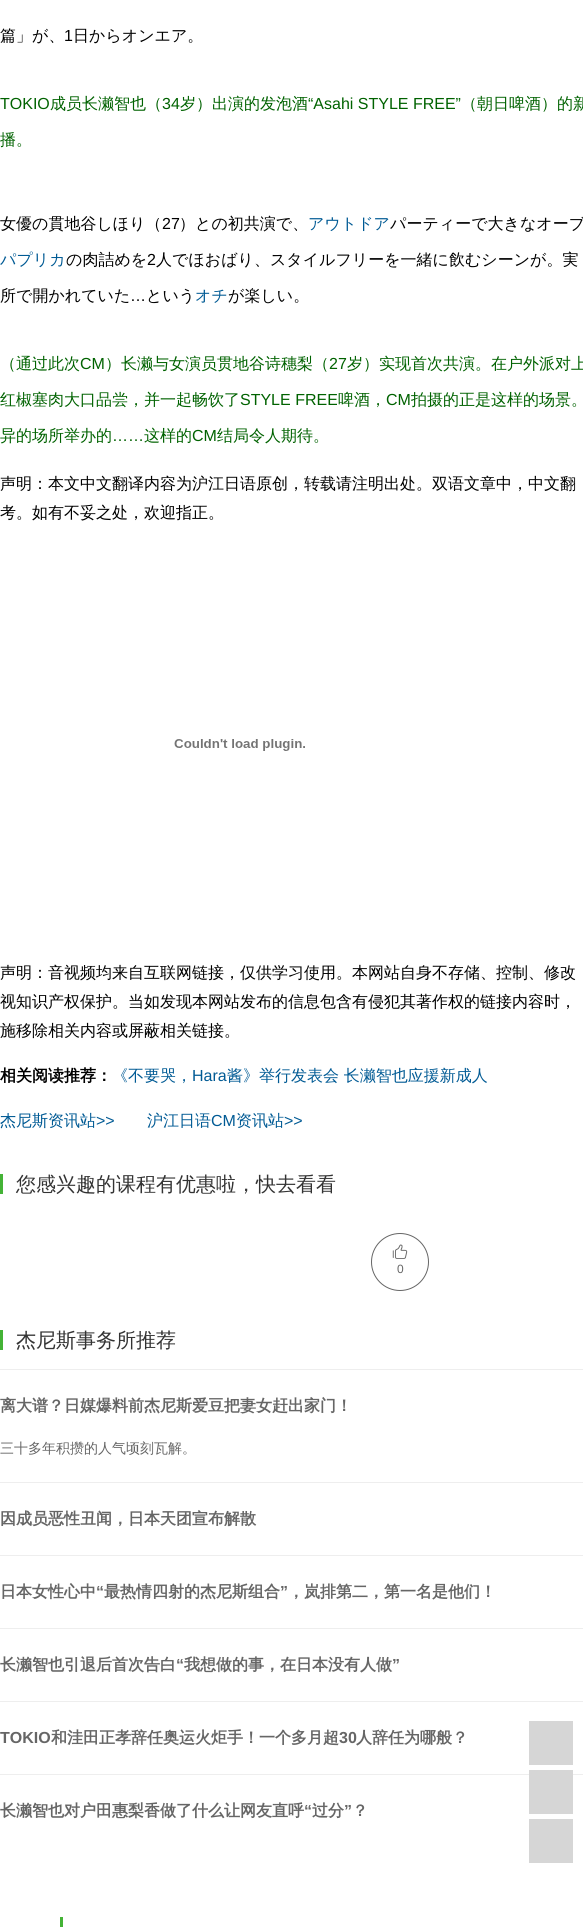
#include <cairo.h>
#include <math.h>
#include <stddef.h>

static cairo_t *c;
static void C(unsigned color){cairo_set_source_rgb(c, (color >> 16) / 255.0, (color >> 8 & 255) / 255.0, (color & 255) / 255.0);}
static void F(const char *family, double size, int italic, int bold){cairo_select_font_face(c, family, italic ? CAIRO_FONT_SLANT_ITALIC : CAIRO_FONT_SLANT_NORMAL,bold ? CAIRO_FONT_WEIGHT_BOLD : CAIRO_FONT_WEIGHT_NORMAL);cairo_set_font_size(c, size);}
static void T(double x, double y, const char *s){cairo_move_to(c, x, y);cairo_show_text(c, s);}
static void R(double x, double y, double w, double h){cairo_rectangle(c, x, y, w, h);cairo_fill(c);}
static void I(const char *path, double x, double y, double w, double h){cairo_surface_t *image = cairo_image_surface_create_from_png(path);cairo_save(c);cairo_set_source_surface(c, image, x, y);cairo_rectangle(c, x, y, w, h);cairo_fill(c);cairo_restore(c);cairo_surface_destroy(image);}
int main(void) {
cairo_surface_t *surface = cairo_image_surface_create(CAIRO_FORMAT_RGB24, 583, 1927);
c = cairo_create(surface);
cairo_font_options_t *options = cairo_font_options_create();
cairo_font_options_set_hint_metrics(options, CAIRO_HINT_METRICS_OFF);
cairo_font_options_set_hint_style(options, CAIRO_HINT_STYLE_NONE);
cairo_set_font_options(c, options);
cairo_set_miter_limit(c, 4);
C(0xffffff);
cairo_paint(c);
F("WenQuanYi Zen Hei Medium",16,0,0);
C(0x000000);
T(0,41,"篇」が、");
F("Liberation Sans",16,0,0);
T(64,41,"1");
F("WenQuanYi Zen Hei Medium",16,0,0);
T(73,41,"日からオンエア。");
F("Liberation Sans",16,0,0);
C(0x006200);
T(0,109,"TOKIO");
F("WenQuanYi Zen Hei Medium",16,0,0);
T(50,109,"成员长濑智也（");
F("Liberation Sans",16,0,0);
T(162,109,"34");
F("WenQuanYi Zen Hei Medium",16,0,0);
T(180,109,"岁）出演的发泡酒");
F("Liberation Sans",16,0,0);
T(308,109,"“Asahi STYLE FREE”");
F("WenQuanYi Zen Hei Medium",16,0,0);
T(461,109,"（朝日啤酒）的新");
T(0,145,"播。");
C(0x000000);
T(0,229,"女優の貫地谷しほり（");
F("Liberation Sans",16,0,0);
T(162,229,"27");
F("WenQuanYi Zen Hei Medium",16,0,0);
T(179,229,"）との初共演で、");
C(0x005a94);
T(308,229,"アウトドア");
C(0x000000);
T(390,229,"パーティーで大きなオーブ");
C(0x005a94);
T(0,265,"パプリカ");
C(0x000000);
T(66,265,"の肉詰めを");
F("Liberation Sans",16,0,0);
T(147,265,"2");
F("WenQuanYi Zen Hei Medium",16,0,0);
T(156,265,"人でほおばり、スタイルフリーを一緒に飲むシーンが。実");
T(0,301,"所で開かれていた");
F("Liberation Sans",16,0,0);
T(130,301,"…");
F("WenQuanYi Zen Hei Medium",16,0,0);
T(146,301,"という");
C(0x005a94);
T(195,301,"オチ");
C(0x000000);
T(228,301,"が楽しい。");
C(0x006200);
T(0,369,"（通过此次");
F("Liberation Sans",16,0,0);
T(80,369,"CM");
F("WenQuanYi Zen Hei Medium",16,0,0);
T(105,369,"）长濑与女演员贯地谷诗穗梨（");
F("Liberation Sans",16,0,0);
T(329,369,"27");
F("WenQuanYi Zen Hei Medium",16,0,0);
T(347,369,"岁）实现首次共演。在户外派对上");
T(0,405,"红椒塞肉大口品尝，并一起畅饮了");
F("Liberation Sans",16,0,0);
T(240,405,"STYLE FREE");
F("WenQuanYi Zen Hei Medium",16,0,0);
T(338,405,"啤酒，");
F("Liberation Sans",16,0,0);
T(386,405,"CM");
F("WenQuanYi Zen Hei Medium",16,0,0);
T(411,405,"拍摄的正是这样的场景。");
T(0,441,"异的场所举办的");
F("Liberation Sans",16,0,0);
T(112,441,"……");
F("WenQuanYi Zen Hei Medium",16,0,0);
T(144,441,"这样的");
F("Liberation Sans",16,0,0);
T(192,441,"CM");
F("WenQuanYi Zen Hei Medium",16,0,0);
T(217,441,"结局令人期待。");
C(0x000000);
T(0,489,"声明：本文中文翻译内容为沪江日语原创，转载请注明出处。双语文章中，中文翻");
T(0,518,"考。如有不妥之处，欢迎指正。");
I("1.png",174,739,131,12);
T(0,978,"声明：音视频均来自互联网链接，仅供学习使用。本网站自身不存储、控制、修改");
T(0,1007,"视知识产权保护。当如发现本网站发布的信息包含有侵犯其著作权的链接内容时，");
T(0,1036,"施移除相关内容或屏蔽相关链接。");
F("WenQuanYi Zen Hei",16,0,1);
T(0,1081,"相关阅读推荐：");
F("WenQuanYi Zen Hei Medium",16,0,0);
C(0x005a94);
T(112,1081,"《不要哭，");
F("Liberation Sans",16,0,0);
T(192,1081,"Hara");
F("WenQuanYi Zen Hei Medium",16,0,0);
T(227,1081,"酱》举行发表会 长濑智也应援新成人");
T(0,1126,"杰尼斯资讯站");
F("Liberation Sans",16,0,0);
T(96,1126,">>");
F("WenQuanYi Zen Hei Medium",16,0,0);
T(147,1126,"沪江日语");
F("Liberation Sans",16,0,0);
T(211,1126,"CM");
F("WenQuanYi Zen Hei Medium",16,0,0);
T(236,1126,"资讯站");
F("Liberation Sans",16,0,0);
T(284,1126,">>");
C(0x44b336);
R(0,1174,3,20);
F("WenQuanYi Zen Hei Medium",20,0,0);
C(0x333333);
T(16,1191,"您感兴趣的课程有优惠啦，快去看看");
cairo_new_path(c);
cairo_arc(c,400,1262,28.5,0,2 * M_PI);
C(0x666666);
cairo_set_line_width(c,1);
cairo_stroke(c);
I("2.png",392,1244,16,15);
F("Liberation Sans",12,0,0);
T(397,1273,"0");
C(0x44b336);
R(0,1330,3,20);
F("WenQuanYi Zen Hei Medium",20,0,0);
C(0x333333);
T(16,1347,"杰尼斯事务所推荐");
C(0xeeeeee);
R(0,1369,583,1);
F("WenQuanYi Zen Hei",16,0,1);
C(0x666666);
T(0,1411,"离大谱？日媒爆料前杰尼斯爱豆把妻女赶出家门！");
F("WenQuanYi Zen Hei Medium",14,0,0);
T(0,1453,"三十多年积攒的人气顷刻瓦解。");
C(0xeeeeee);
R(0,1482,583,1);
F("WenQuanYi Zen Hei",16,0,1);
C(0x666666);
T(0,1524,"因成员恶性丑闻，日本天团宣布解散");
C(0xeeeeee);
R(0,1555,583,1);
C(0x666666);
T(0,1597,"日本女性心中");
F("Liberation Sans",16,0,1);
T(96,1597,"“");
F("WenQuanYi Zen Hei",16,0,1);
T(104,1597,"最热情四射的杰尼斯组合");
F("Liberation Sans",16,0,1);
T(280,1597,"”");
F("WenQuanYi Zen Hei",16,0,1);
T(288,1597,"，岚排第二，第一名是他们！");
C(0xeeeeee);
R(0,1628,583,1);
C(0x666666);
T(0,1670,"长濑智也引退后首次告白");
F("Liberation Sans",16,0,1);
T(176,1670,"“");
F("WenQuanYi Zen Hei",16,0,1);
T(184,1670,"我想做的事，在日本没有人做");
F("Liberation Sans",16,0,1);
T(392,1670,"”");
C(0xeeeeee);
R(0,1701,583,1);
C(0x666666);
T(0,1743,"TOKIO");
F("WenQuanYi Zen Hei",16,0,1);
T(51,1743,"和洼田正孝辞任奥运火炬手！一个多月超");
F("Liberation Sans",16,0,1);
T(339,1743,"30");
F("WenQuanYi Zen Hei",16,0,1);
T(356,1743,"人辞任为哪般？");
C(0xeeeeee);
R(0,1774,583,1);
C(0x666666);
T(0,1816,"长濑智也对户田惠梨香做了什么让网友直呼");
F("Liberation Sans",16,0,1);
T(304,1816,"“");
F("WenQuanYi Zen Hei",16,0,1);
T(312,1816,"过分");
F("Liberation Sans",16,0,1);
T(344,1816,"”");
F("WenQuanYi Zen Hei",16,0,1);
T(352,1816,"？");
C(0x44b336);
R(60,1917,3,10);
C(0xd6d6d6);
R(529,1721,44,44);
R(529,1770,44,44);
R(529,1819,44,44);
cairo_surface_write_to_png(surface, "o.png");
cairo_font_options_destroy(options);
cairo_destroy(c);
cairo_surface_destroy(surface);
return 0;
}
